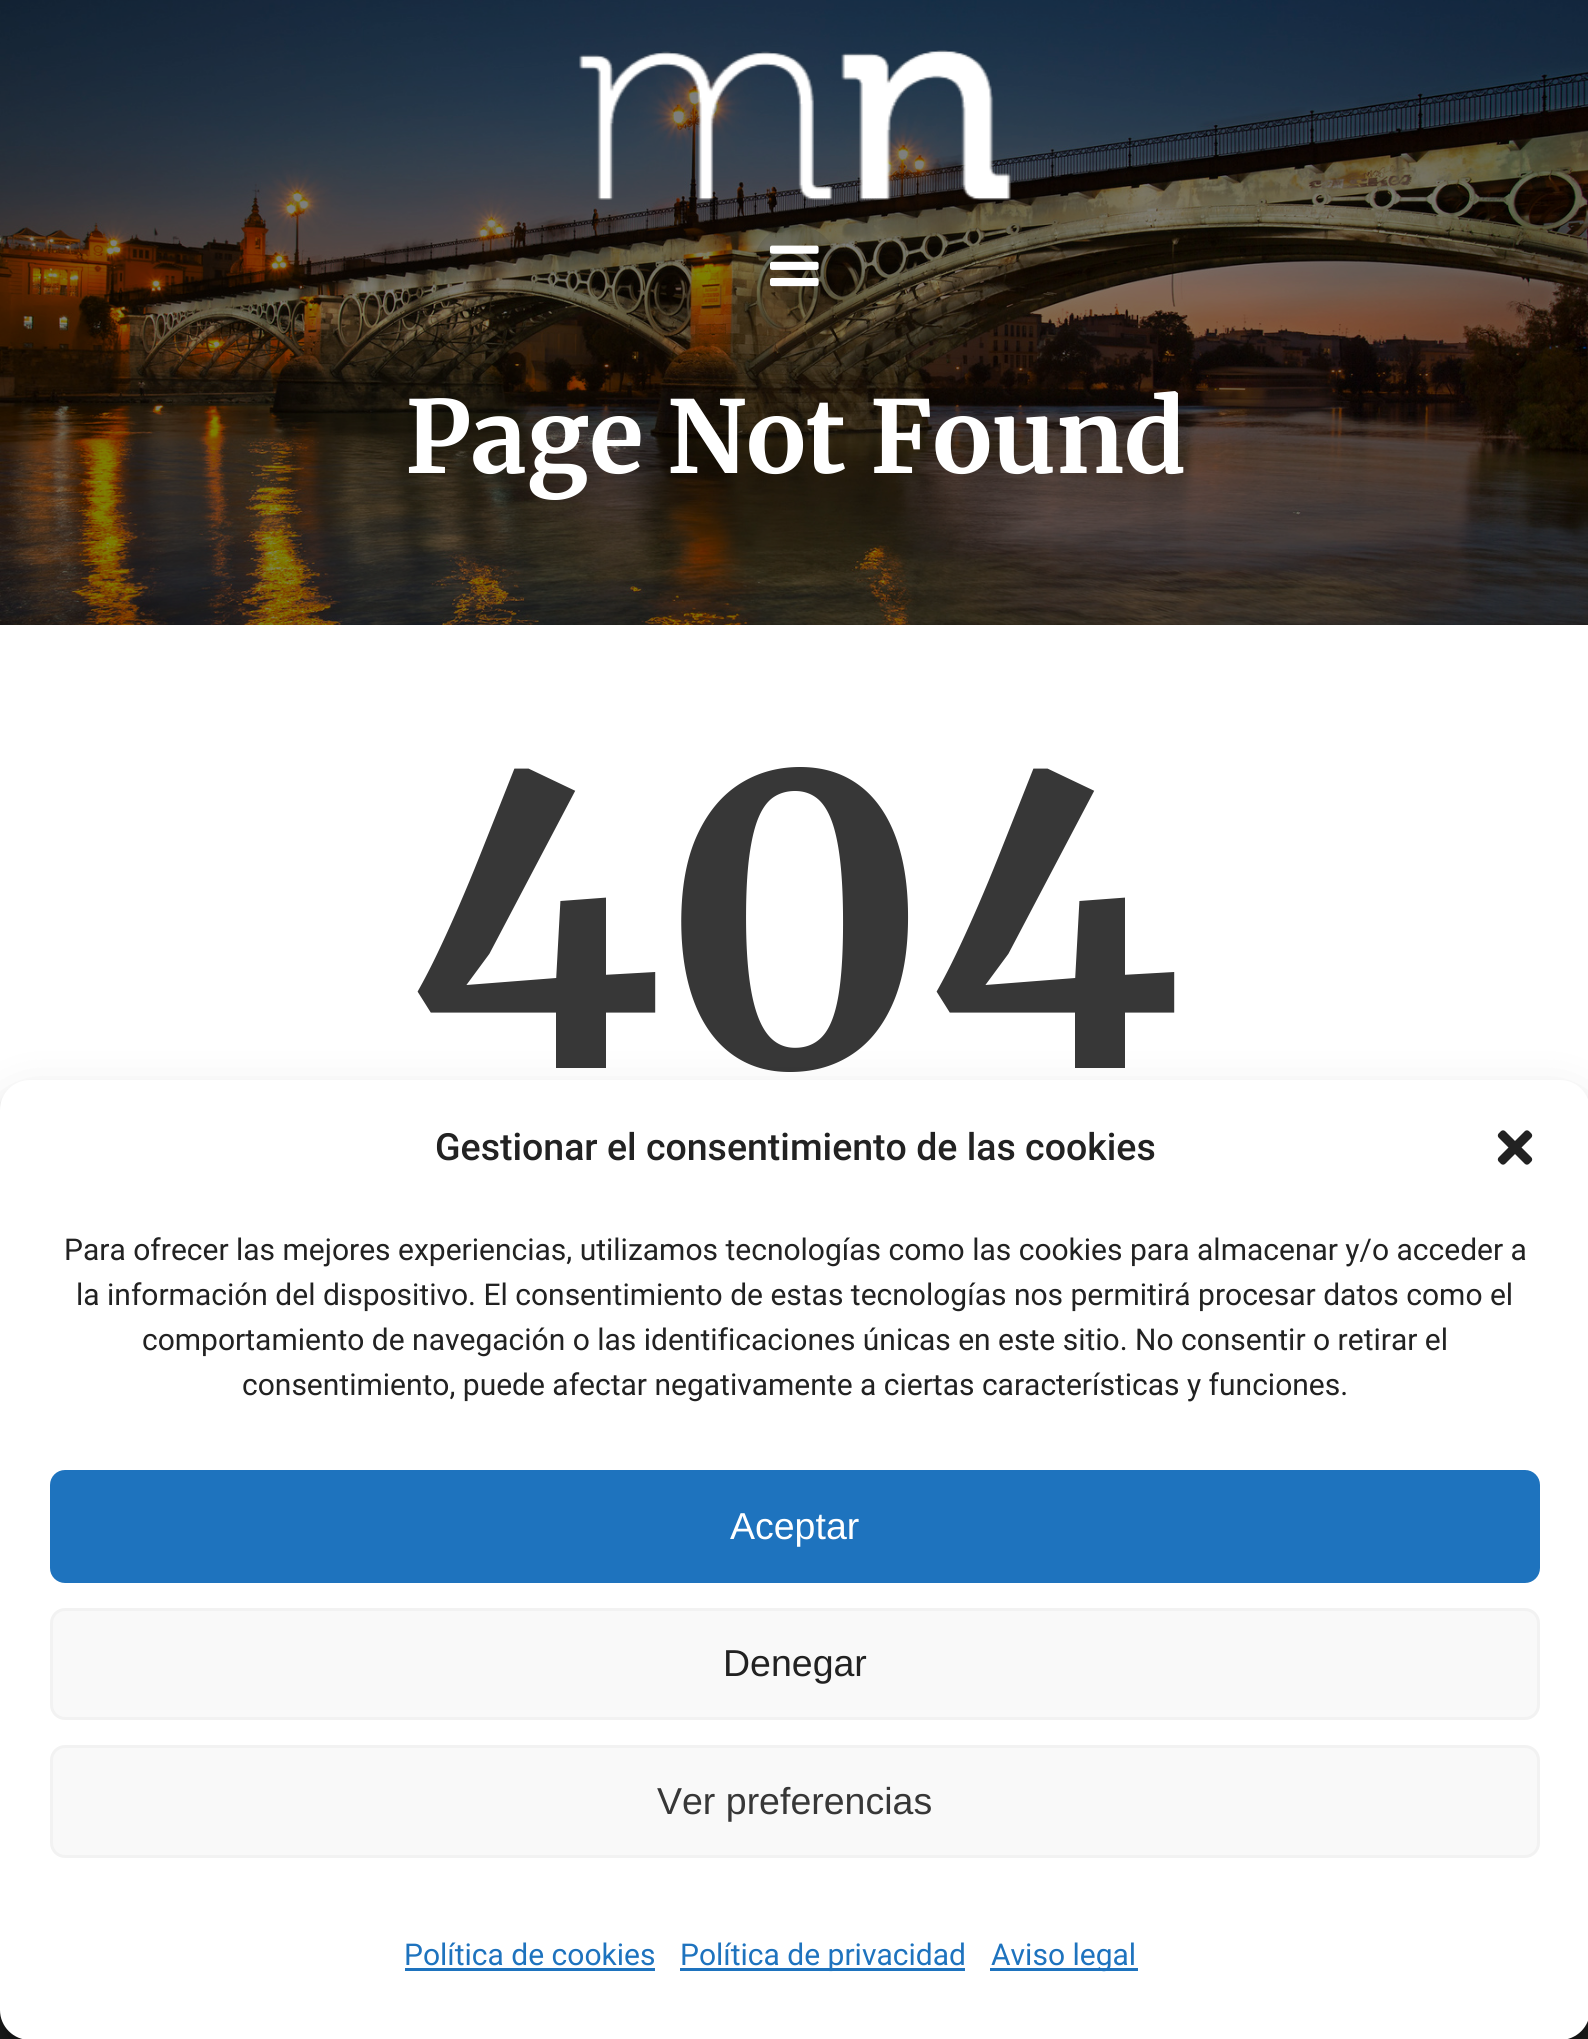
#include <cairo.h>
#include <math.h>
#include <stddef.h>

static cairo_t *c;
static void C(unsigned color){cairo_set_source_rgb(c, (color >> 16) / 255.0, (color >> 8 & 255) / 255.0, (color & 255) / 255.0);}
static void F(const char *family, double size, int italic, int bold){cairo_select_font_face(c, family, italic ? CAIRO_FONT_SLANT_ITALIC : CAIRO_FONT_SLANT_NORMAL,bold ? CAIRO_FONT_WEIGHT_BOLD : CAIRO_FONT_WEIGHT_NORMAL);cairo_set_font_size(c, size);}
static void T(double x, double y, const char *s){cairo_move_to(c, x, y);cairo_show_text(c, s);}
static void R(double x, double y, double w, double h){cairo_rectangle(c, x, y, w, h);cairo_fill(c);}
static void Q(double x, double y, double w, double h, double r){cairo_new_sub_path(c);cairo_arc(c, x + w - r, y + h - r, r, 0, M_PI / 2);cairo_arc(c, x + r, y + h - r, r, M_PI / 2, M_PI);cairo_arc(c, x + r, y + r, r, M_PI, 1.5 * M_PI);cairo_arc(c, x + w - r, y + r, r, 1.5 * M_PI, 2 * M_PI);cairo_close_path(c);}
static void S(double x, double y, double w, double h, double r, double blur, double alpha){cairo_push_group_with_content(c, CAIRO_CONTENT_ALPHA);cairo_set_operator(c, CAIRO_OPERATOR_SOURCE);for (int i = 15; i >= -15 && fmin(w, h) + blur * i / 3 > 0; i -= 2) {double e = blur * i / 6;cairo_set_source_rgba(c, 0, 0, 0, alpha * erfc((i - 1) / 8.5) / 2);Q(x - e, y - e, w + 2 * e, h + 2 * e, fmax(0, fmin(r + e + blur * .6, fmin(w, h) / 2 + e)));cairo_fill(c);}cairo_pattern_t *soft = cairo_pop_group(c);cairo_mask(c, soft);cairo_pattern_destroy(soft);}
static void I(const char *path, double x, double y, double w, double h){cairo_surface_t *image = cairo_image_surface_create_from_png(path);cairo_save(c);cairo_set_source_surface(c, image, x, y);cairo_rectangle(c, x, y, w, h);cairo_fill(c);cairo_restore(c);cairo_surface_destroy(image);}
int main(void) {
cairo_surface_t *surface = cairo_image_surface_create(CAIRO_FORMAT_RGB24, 1588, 2039);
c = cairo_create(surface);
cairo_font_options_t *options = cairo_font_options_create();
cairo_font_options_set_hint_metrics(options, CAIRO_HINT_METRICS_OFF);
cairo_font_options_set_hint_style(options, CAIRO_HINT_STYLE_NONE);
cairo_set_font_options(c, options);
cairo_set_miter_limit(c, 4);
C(0xffffff);
cairo_paint(c);
I("3.png",0,0,1588,625);
I("1.png",579,50,432,150);
cairo_set_source_rgba(c,0,0,0,0.1);
cairo_arc(c,795.5,267.5,42.5,0,2 * M_PI);
cairo_fill(c);
I("2.png",770,245,49,42);
F("Merriweather",100,0,1);
C(0xffffff);
T(405,473,"Page Not Found");
F("Merriweather",400,0,1);
C(0x373737);
T(408,1068,"404");
C(0x1c1c1c);
R(0,2010,1588,29);
C(0x000000);
S(0,1095,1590,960,30,7.5,.23);
S(0,1105,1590,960,30,25,.19);
C(0xffffff);
Q(0,1080,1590,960,30);
cairo_fill(c);
F("Roboto Medium",37.5,0,0);
C(0x222222);
T(435,1160,"Gestionar el consentimiento de las cookies");
I("4.png",1497,1130,36,35);
F("Roboto",30,0,0);
T(64,1260,"Para ofrecer las mejores experiencias, utilizamos tecnologías como las cookies para almacenar y/o acceder a");
T(76,1305,"la información del dispositivo. El consentimiento de estas tecnologías nos permitirá procesar datos como el");
T(142,1350,"comportamiento de navegación o las identificaciones únicas en este sitio. No consentir o retirar el");
T(242,1395,"consentimiento, puede afectar negativamente a ciertas características y funciones.");
C(0x1e73be);
Q(51.5,1471.5,1487,110,13.5);
cairo_fill_preserve(c);
cairo_set_line_width(c,3);
cairo_stroke(c);
F("Liberation Sans",37.5,0,0);
C(0xffffff);
T(730,1539,"Aceptar");
C(0xf9f9f9);
Q(51.5,1609.5,1487,109,13.5);
cairo_fill_preserve(c);
C(0xf2f2f2);
cairo_stroke(c);
C(0x222222);
T(723,1676,"Denegar");
C(0xf9f9f9);
Q(51.5,1746.5,1487,110,13.5);
cairo_fill_preserve(c);
C(0xf2f2f2);
cairo_stroke(c);
C(0x373737);
T(657,1814,"Ver preferencias");
F("Roboto",30,0,0);
C(0x1e73be);
T(404,1965,"Política de cookies");
R(405,1968,250,3);
R(680,1968,285,3);
T(680,1965,"Política de privacidad");
R(990,1968,148,3);
T(991,1965,"Aviso legal");
cairo_surface_write_to_png(surface, "o.png");
cairo_font_options_destroy(options);
cairo_destroy(c);
cairo_surface_destroy(surface);
return 0;
}
